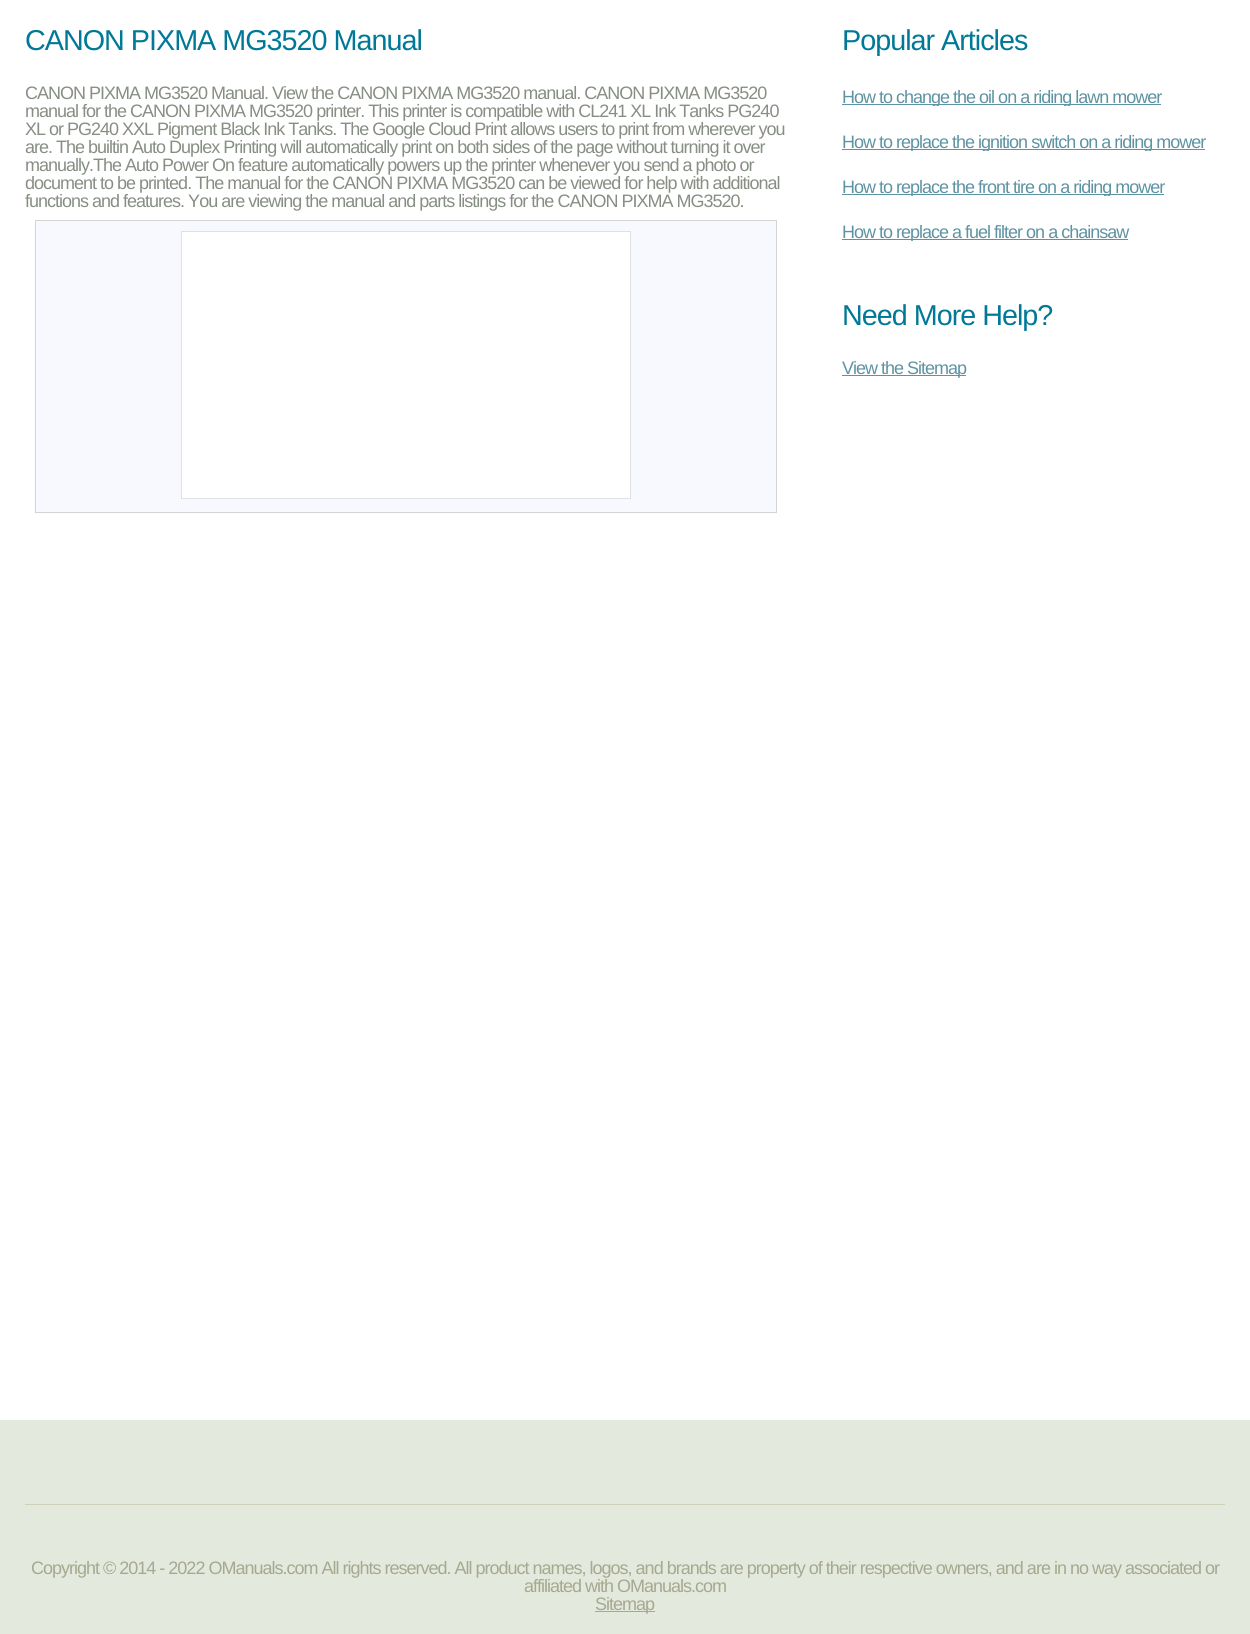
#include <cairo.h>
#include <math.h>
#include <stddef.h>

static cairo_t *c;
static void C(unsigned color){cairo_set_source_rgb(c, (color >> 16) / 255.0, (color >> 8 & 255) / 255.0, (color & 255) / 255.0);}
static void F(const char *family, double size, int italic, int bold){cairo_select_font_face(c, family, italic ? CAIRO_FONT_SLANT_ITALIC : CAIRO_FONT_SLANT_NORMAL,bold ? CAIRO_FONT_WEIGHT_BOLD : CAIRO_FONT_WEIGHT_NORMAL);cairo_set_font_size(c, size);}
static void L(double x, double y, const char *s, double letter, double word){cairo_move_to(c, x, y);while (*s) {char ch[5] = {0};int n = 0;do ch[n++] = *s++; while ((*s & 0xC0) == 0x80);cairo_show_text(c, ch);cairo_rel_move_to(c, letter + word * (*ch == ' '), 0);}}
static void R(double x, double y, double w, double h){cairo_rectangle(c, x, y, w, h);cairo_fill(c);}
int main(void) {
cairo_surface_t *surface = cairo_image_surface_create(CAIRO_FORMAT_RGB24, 1250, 1634);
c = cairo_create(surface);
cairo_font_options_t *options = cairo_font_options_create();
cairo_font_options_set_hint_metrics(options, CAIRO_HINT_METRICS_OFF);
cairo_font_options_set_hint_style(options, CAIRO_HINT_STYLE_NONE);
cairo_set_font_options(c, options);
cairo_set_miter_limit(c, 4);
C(0xe3e9dc);
cairo_paint(c);
C(0xffffff);
R(0,0,1250,1420);
F("Liberation Sans",28.75,0,0);
C(0x007897);
L(25,50,"CANON PIXMA MG3520 Manual",-1,0);
F("Liberation Sans",18,0,0);
C(0x878e83);
L(25,99,"CANON PIXMA MG3520 Manual. View the CANON PIXMA MG3520 manual. CANON PIXMA MG3520",-1,0);
L(25,117,"manual for the CANON PIXMA MG3520 printer. This printer is compatible with CL241 XL Ink Tanks PG240",-1,0);
L(25,135,"XL or PG240 XXL Pigment Black Ink Tanks. The Google Cloud Print allows users to print from wherever you",-1,0);
L(25,153,"are. The builtin Auto Duplex Printing will automatically print on both sides of the page without turning it over",-1,0);
L(25,171,"manually.The Auto Power On feature automatically powers up the printer whenever you send a photo or",-1,0);
L(25,189,"document to be printed. The manual for the CANON PIXMA MG3520 can be viewed for help with additional",-1,0);
L(25,207,"functions and features. You are viewing the manual and parts listings for the CANON PIXMA MG3520.",-1,0);
C(0xf8f8ff);
cairo_rectangle(c,35.5,220.5,741,292);
cairo_fill_preserve(c);
C(0xd3d3d3);
cairo_set_line_width(c,1);
cairo_stroke(c);
C(0xffffff);
cairo_rectangle(c,181.5,231.5,449,267);
cairo_fill_preserve(c);
C(0xe1e1e3);
cairo_stroke(c);
F("Liberation Sans",28.75,0,0);
C(0x007897);
L(842,50,"Popular Articles",-1,0);
C(0x5d93a2);
R(842,104,319,1);
cairo_save(c);
cairo_rectangle(c,842,88,383,18);
cairo_clip(c);
F("Liberation Sans",18,0,0);
L(842,103,"How to change the oil on a riding lawn mower",-1,0);
cairo_restore(c);
R(842,149,363,1);
cairo_save(c);
cairo_rectangle(c,842,133,383,18);
cairo_clip(c);
F("Liberation Sans",18,0,0);
L(842,148,"How to replace the ignition switch on a riding mower",-1,0);
cairo_restore(c);
R(842,194,322,1);
cairo_save(c);
cairo_rectangle(c,842,178,383,18);
cairo_clip(c);
F("Liberation Sans",18,0,0);
L(842,193,"How to replace the front tire on a riding mower",-1,0);
cairo_restore(c);
R(842,239,286,1);
cairo_save(c);
cairo_rectangle(c,842,223,383,18);
cairo_clip(c);
F("Liberation Sans",18,0,0);
L(842,238,"How to replace a fuel filter on a chainsaw",-1,0);
cairo_restore(c);
C(0x007897);
L(842,325,"Need More Help?",-1,0);
C(0x5d93a2);
R(842,375,124,1);
F("Liberation Sans",18,0,0);
L(842,374,"View the Sitemap",-1,0);
C(0xced0b7);
R(25,1504,1200,1);
C(0xa6a88f);
L(31,1574,"Copyright © 2014 - 2022 OManuals.com All rights reserved. All product names, logos, and brands are property of their respective owners, and are in no way associated or",-1,0);
L(524,1592,"affiliated with OManuals.com",-1,0);
R(595,1611,60,1);
L(595,1610,"Sitemap",-1,0);
cairo_surface_write_to_png(surface, "o.png");
cairo_font_options_destroy(options);
cairo_destroy(c);
cairo_surface_destroy(surface);
return 0;
}
